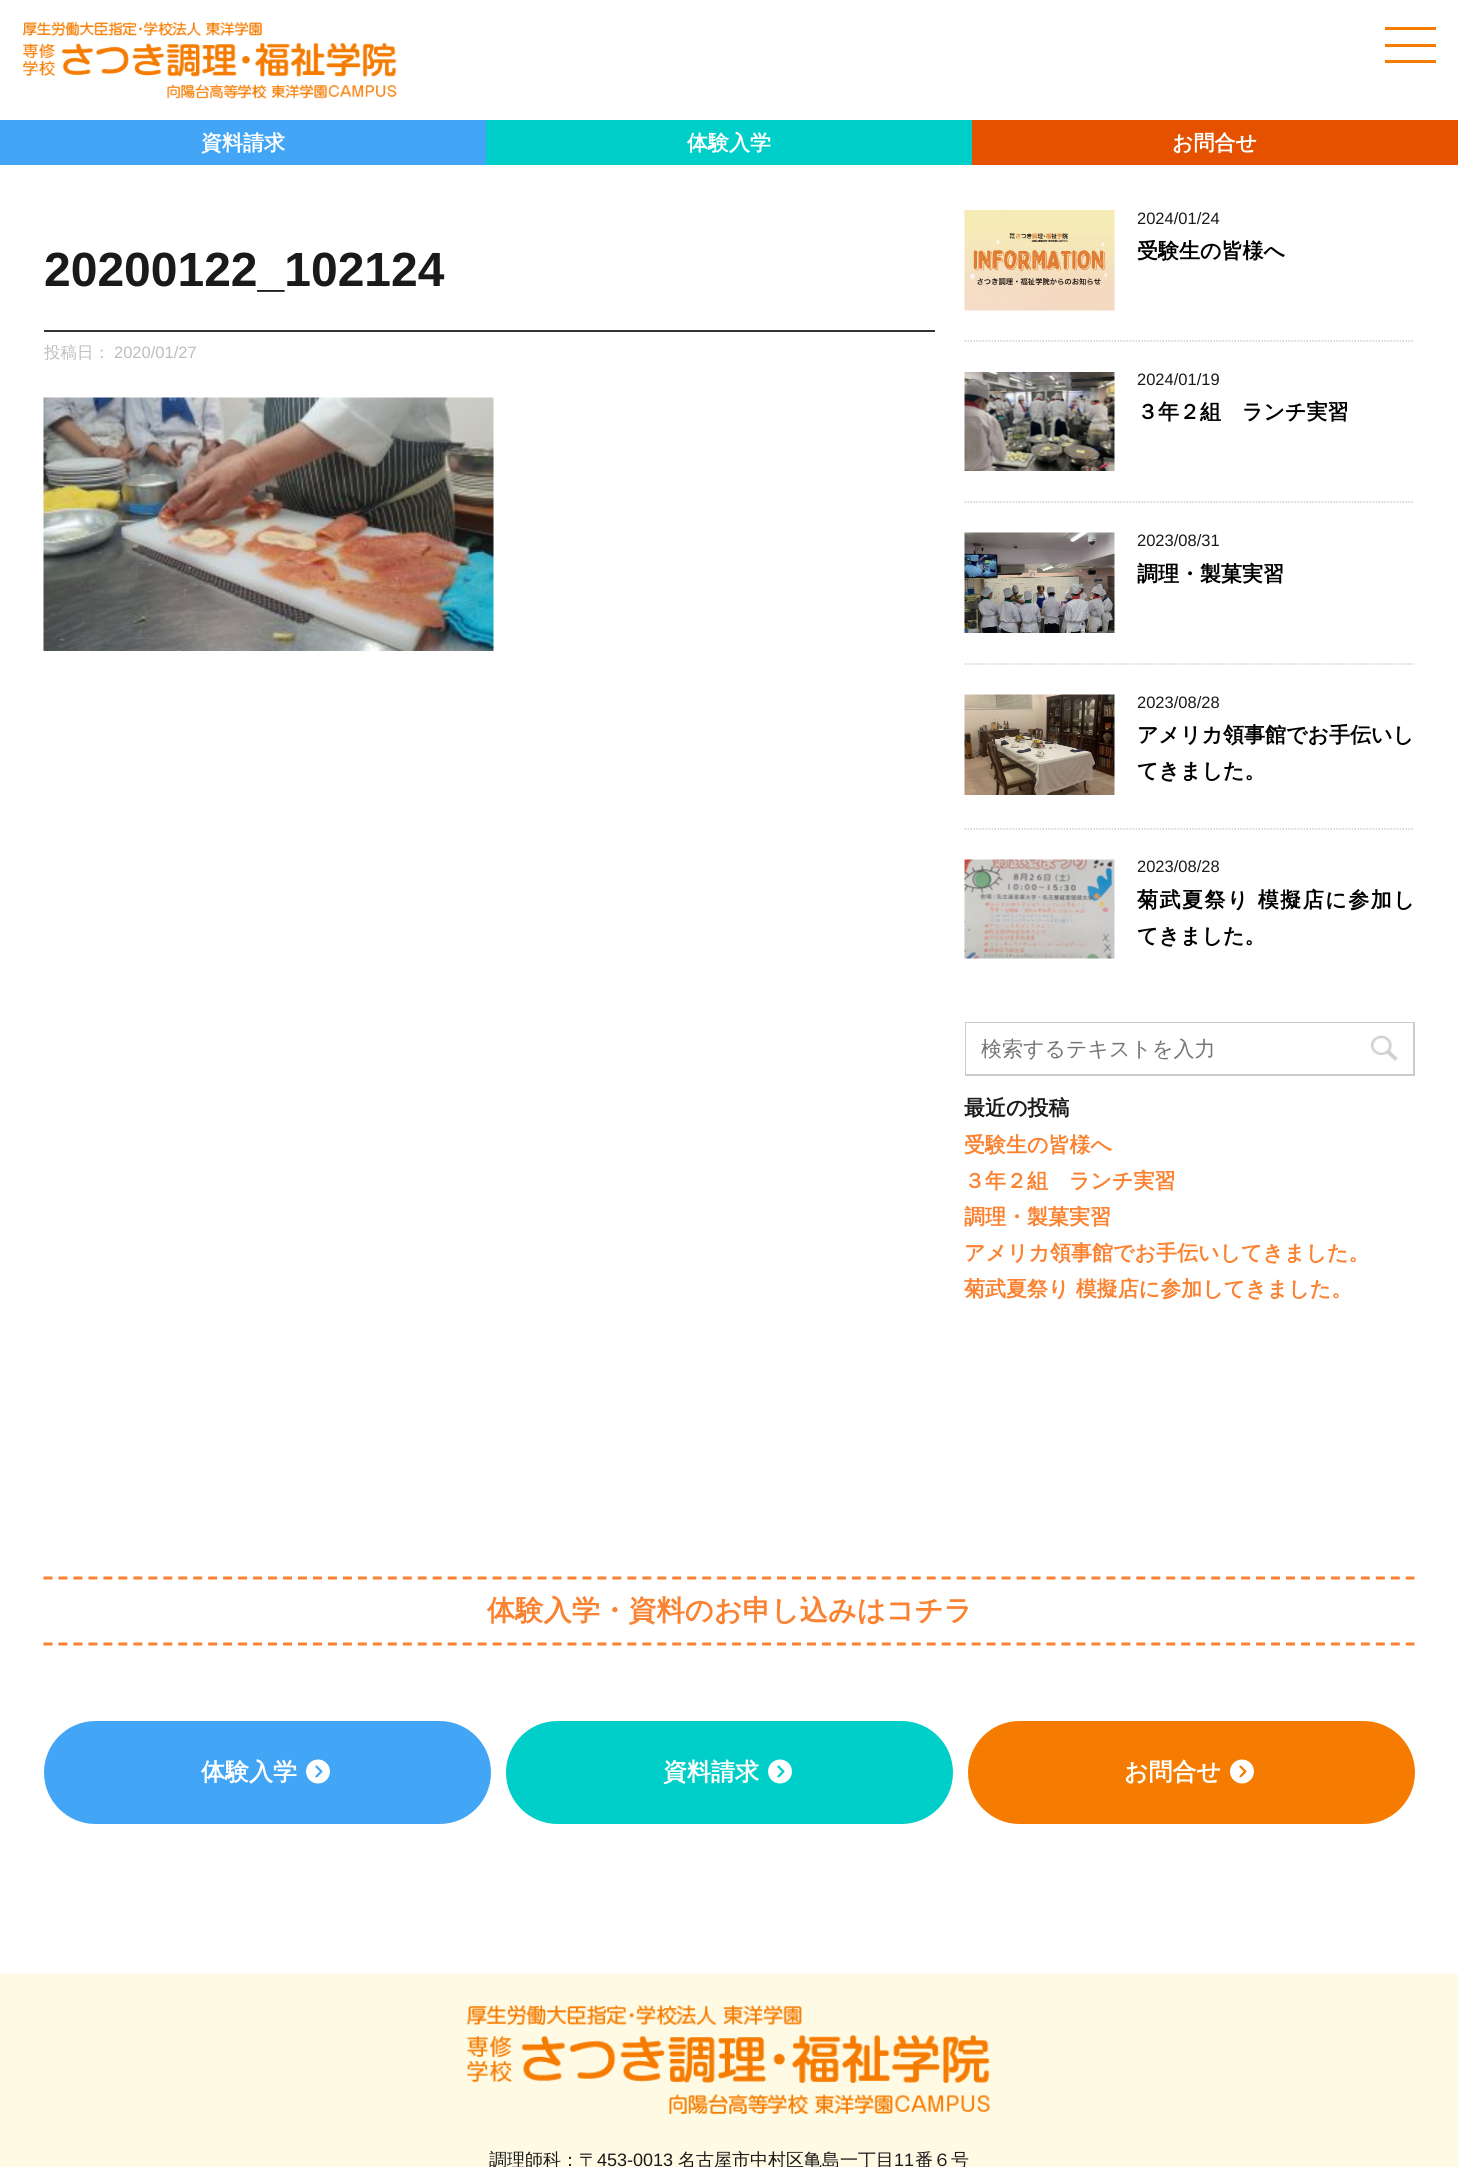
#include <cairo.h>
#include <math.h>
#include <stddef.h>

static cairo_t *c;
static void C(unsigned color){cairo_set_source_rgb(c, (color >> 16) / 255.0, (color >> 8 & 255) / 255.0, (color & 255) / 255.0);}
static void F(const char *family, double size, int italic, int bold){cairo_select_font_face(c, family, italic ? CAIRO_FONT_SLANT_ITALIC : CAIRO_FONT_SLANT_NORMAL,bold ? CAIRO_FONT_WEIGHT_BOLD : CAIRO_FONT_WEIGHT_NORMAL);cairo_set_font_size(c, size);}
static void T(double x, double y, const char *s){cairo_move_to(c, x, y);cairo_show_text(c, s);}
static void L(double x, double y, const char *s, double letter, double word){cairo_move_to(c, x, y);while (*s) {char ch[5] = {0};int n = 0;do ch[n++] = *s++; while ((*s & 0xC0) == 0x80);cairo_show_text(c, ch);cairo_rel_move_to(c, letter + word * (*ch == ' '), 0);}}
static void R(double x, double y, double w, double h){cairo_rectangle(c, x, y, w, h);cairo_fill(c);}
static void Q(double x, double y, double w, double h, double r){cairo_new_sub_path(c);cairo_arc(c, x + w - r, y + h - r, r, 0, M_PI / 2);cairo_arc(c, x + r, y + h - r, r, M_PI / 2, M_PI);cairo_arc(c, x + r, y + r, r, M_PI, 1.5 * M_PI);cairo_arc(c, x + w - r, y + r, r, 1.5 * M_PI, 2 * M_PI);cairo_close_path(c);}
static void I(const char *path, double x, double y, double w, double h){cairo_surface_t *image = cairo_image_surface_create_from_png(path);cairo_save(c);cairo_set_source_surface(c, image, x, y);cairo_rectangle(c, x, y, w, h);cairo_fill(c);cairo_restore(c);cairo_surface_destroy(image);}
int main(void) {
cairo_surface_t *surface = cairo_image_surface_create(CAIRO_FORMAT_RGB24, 1458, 2167);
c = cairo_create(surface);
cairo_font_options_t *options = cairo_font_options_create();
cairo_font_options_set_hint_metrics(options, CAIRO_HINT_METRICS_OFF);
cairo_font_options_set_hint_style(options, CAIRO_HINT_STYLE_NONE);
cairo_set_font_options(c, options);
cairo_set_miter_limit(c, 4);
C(0xffffff);
cairo_paint(c);
I("1.png",23,21,374,78);
C(0xf57c00);
R(1385,27,51,3);
R(1385,44,51,3);
R(1385,60,51,3);
C(0x42a5f5);
R(0,120,486,45);
F("WenQuanYi Zen Hei",21,0,1);
C(0xffffff);
T(201,150,"資料請求");
C(0x00cec9);
R(486,120,486,45);
C(0xffffff);
T(687,150,"体験入学");
C(0xe65100);
R(972,120,486,45);
C(0xffffff);
T(1172,150,"お問合せ");
C(0x333333);
R(44,330,891,2);
F("Liberation Sans",48,0,1);
C(0x1a1a1a);
T(44,286,"20200122_102124");
F("WenQuanYi Zen Hei Medium",16.5,0,0);
C(0xbdbdbd);
T(44,358,"投稿日：");
F("Liberation Sans",16.5,0,0);
T(114,358,"2020/01/27");
I("2.png",43,397,451,254);
cairo_new_path(c);
cairo_move_to(c,964.5,341);
cairo_line_to(c,1414.5,341);
C(0xcccccc);
cairo_set_line_width(c,1.5);
cairo_set_dash(c,(double[]){1.5,1.5},2,0);
cairo_stroke(c);
I("3.png",964,210,151,101);
C(0x1a1a1a);
T(1137,224,"2024/01/24");
F("WenQuanYi Zen Hei",21,0,1);
C(0x000000);
T(1137,258,"受験生の皆様へ");
cairo_new_path(c);
cairo_move_to(c,964.5,502);
cairo_line_to(c,1414.5,502);
C(0xcccccc);
cairo_stroke(c);
I("4.png",964,372,151,99);
F("Liberation Sans",16.5,0,0);
C(0x1a1a1a);
T(1137,385,"2024/01/19");
F("WenQuanYi Zen Hei",21,0,1);
C(0x000000);
T(1137,419,"３年２組　ランチ実習");
cairo_new_path(c);
cairo_move_to(c,964.5,664);
cairo_line_to(c,1414.5,664);
C(0xcccccc);
cairo_stroke(c);
I("5.png",964,532,151,101);
F("Liberation Sans",16.5,0,0);
C(0x1a1a1a);
T(1137,546,"2023/08/31");
F("WenQuanYi Zen Hei",21,0,1);
C(0x000000);
T(1137,581,"調理・製菓実習");
cairo_new_path(c);
cairo_move_to(c,964.5,829);
cairo_line_to(c,1414.5,829);
C(0xcccccc);
cairo_stroke(c);
I("6.png",964,694,151,101);
F("Liberation Sans",16.5,0,0);
C(0x1a1a1a);
T(1137,708,"2023/08/28");
F("WenQuanYi Zen Hei",21,0,1);
C(0x000000);
T(1137,742,"アメリカ領事館でお手伝いし");
T(1137,778,"てきました。");
I("7.png",964,859,151,100);
F("Liberation Sans",16.5,0,0);
C(0x1a1a1a);
T(1137,872,"2023/08/28");
F("WenQuanYi Zen Hei",21,0,1);
C(0x000000);
L(1137,907,"菊武夏祭り 模擬店に参加し",1.5,0);
T(1137,943,"てきました。");
cairo_rectangle(c,966,1023,448,52);
C(0xcccccc);
cairo_set_line_width(c,2);
cairo_set_dash(c,NULL,0,0);
cairo_stroke(c);
C(0xffffff);
R(966,1023,447,51);
F("WenQuanYi Zen Hei Medium",21,0,0);
C(0x757575);
T(981,1056,"検索するテキストを入力");
I("8.png",1371,1035,27,26);
F("WenQuanYi Zen Hei",21,0,1);
C(0x1a1a1a);
T(964,1115,"最近の投稿");
C(0xfa8231);
T(964,1152,"受験生の皆様へ");
T(964,1188,"３年２組　ランチ実習");
T(964,1224,"調理・製菓実習");
T(964,1260,"アメリカ領事館でお手伝いしてきました。");
T(964,1296,"菊武夏祭り 模擬店に参加してきました。");
cairo_new_path(c);
cairo_move_to(c,43.5,1578);
cairo_line_to(c,1414.5,1578);
cairo_set_line_width(c,3);
cairo_set_dash(c,(double[]){9,5.97},2,0);
cairo_stroke(c);
cairo_new_path(c);
cairo_move_to(c,43.5,1644);
cairo_line_to(c,1414.5,1644);
cairo_stroke(c);
F("WenQuanYi Zen Hei",28.25,0,1);
T(487,1620,"体験入学・資料のお申し込みはコチラ");
C(0x42a5f5);
Q(45.5,1722.5,444,100,50);
cairo_fill_preserve(c);
cairo_set_dash(c,NULL,0,0);
cairo_stroke(c);
F("WenQuanYi Zen Hei",24,0,1);
C(0xffffff);
T(201,1780,"体験入学");
I("9.png",306,1759,24,25);
C(0x00cec9);
Q(507.5,1722.5,444,100,50);
cairo_fill_preserve(c);
cairo_stroke(c);
C(0xffffff);
T(663,1780,"資料請求");
I("10.png",768,1759,24,25);
C(0xf57c00);
Q(969.5,1722.5,444,100,50);
cairo_fill_preserve(c);
cairo_stroke(c);
C(0xffffff);
T(1124,1780,"お問合せ");
I("11.png",1230,1759,24,25);
C(0xfffae4);
R(0,1974,1458,193);
I("12.png",466,2005,525,110);
F("WenQuanYi Zen Hei Medium",18,0,0);
C(0x1a1a1a);
T(489,2166,"調理師科：〒");
F("Liberation Sans",18,0,0);
T(597,2166,"453-0013");
F("WenQuanYi Zen Hei Medium",18,0,0);
T(678,2166,"名古屋市中村区亀島一丁目");
F("Liberation Sans",18,0,0);
T(894,2166,"11");
F("WenQuanYi Zen Hei Medium",18,0,0);
T(915,2166,"番６号");
cairo_surface_write_to_png(surface, "o.png");
cairo_font_options_destroy(options);
cairo_destroy(c);
cairo_surface_destroy(surface);
return 0;
}
